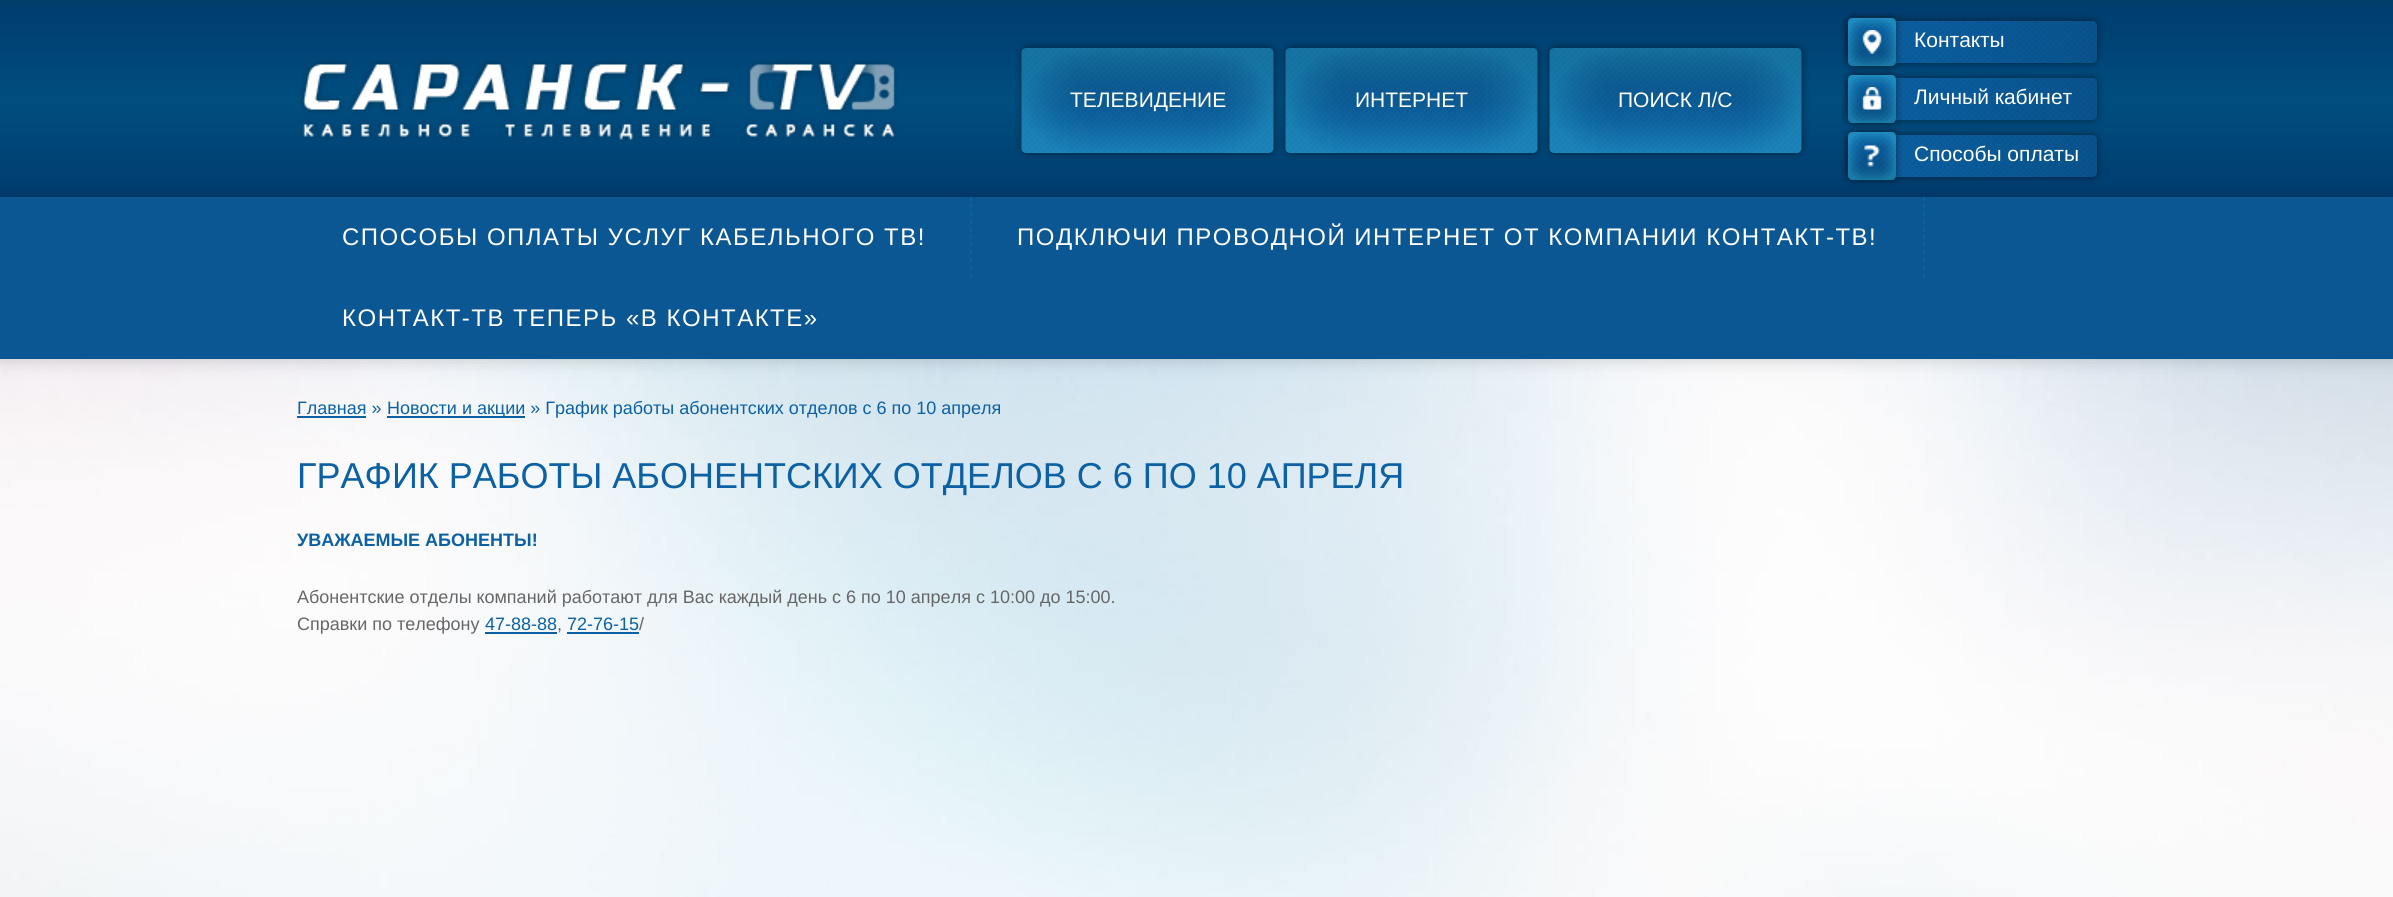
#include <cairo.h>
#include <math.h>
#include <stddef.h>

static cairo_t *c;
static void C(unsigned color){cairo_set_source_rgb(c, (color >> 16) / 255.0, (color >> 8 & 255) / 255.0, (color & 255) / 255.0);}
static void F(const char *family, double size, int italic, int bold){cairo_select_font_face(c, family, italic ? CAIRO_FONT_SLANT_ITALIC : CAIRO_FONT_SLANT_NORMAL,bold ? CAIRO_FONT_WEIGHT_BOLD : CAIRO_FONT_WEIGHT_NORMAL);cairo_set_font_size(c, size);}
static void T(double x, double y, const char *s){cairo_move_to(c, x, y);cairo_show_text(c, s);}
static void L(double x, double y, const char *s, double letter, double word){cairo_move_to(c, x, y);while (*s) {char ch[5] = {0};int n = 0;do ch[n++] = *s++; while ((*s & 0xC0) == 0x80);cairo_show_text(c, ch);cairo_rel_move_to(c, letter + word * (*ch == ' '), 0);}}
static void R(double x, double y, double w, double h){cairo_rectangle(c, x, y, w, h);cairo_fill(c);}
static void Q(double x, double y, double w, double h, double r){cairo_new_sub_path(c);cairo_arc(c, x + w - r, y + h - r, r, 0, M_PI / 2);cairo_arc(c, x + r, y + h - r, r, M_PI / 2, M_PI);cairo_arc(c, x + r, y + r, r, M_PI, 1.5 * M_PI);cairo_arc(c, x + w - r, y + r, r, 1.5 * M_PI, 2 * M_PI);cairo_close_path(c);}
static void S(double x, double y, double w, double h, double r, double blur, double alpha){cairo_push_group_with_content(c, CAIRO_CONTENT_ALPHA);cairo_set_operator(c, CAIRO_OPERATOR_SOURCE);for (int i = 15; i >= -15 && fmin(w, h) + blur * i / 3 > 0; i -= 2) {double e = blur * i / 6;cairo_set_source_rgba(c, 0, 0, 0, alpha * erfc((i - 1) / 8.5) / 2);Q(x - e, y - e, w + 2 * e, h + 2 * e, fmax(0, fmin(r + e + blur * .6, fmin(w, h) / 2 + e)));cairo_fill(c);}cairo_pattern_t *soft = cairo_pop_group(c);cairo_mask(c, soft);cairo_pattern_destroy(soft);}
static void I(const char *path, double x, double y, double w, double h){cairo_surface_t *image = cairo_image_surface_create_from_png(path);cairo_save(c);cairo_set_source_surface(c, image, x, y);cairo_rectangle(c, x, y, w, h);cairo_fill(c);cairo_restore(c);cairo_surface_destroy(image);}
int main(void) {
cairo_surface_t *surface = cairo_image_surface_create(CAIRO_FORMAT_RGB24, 2393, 897);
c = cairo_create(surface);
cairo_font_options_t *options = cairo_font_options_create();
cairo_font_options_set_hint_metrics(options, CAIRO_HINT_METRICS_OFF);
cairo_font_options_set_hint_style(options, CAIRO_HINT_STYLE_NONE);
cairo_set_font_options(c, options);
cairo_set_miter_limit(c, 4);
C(0xffffff);
cairo_paint(c);
I("1.png",0,0,2393,197);
I("2.png",300,60,597,82);
C(0x000000);
S(1022,48,252,105,5,4,.5);
I("3.png",1021,48,253,105);
F("Liberation Sans",21,0,0);
C(0xffffff);
T(1070,107,"ТЕЛЕВИДЕНИЕ");
C(0x000000);
S(1286,48,252,105,5,4,.5);
I("4.png",1285,48,253,105);
C(0xffffff);
T(1355,107,"ИНТЕРНЕТ");
C(0x000000);
S(1550,48,252,105,5,4,.5);
I("5.png",1549,48,253,105);
C(0xffffff);
T(1618,107,"ПОИСК Л/С");
C(0x000000);
S(1848,21,249,42,5,4,.5);
I("6.png",1848,21,249,42);
S(1848,78,249,42,5,4,.5);
I("8.png",1848,78,249,42);
S(1848,18,48,48,5,4,.5);
I("7.png",1848,18,48,48);
C(0xffffff);
T(1914,47,"Контакты");
C(0x000000);
S(1848,135,249,42,5,4,.5);
I("10.png",1848,135,249,42);
S(1848,75,48,48,5,4,.5);
I("9.png",1848,75,48,48);
C(0xffffff);
T(1914,104,"Личный кабинет");
C(0x000000);
S(1848,132,48,48,5,4,.5);
I("12.png",0,359,2393,538);
S(0,197,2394,162,0,9,.2);
I("11.png",1848,132,48,48);
C(0xffffff);
T(1914,161,"Способы оплаты");
C(0x0a5793);
R(0,197,2393,162);
cairo_new_path(c);
cairo_move_to(c,971,196.5);
cairo_line_to(c,971,277.5);
C(0x0e63a2);
cairo_set_line_width(c,1.5);
cairo_set_dash(c,(double[]){4.5,3.15},2,0);
cairo_stroke(c);
F("Liberation Sans",24,0,0);
C(0xffffff);
L(342,245,"СПОСОБЫ ОПЛАТЫ УСЛУГ КАБЕЛЬНОГО ТВ!",1.5,0);
cairo_new_path(c);
cairo_move_to(c,1924,196.5);
cairo_line_to(c,1924,277.5);
C(0x0e63a2);
cairo_stroke(c);
C(0xffffff);
L(1017,245,"ПОДКЛЮЧИ ПРОВОДНОЙ ИНТЕРНЕТ ОТ КОМПАНИИ КОНТАКТ-ТВ!",1.5,0);
L(342,326,"КОНТАКТ-ТВ ТЕПЕРЬ «В КОНТАКТЕ»",1.5,0);
F("Liberation Sans",18,0,0);
C(0x0b61a4);
T(297,414,"Главная »");
R(297,416,69,2);
R(387,416,138,2);
T(387,414,"Новости и акции » График работы абонентских отделов с 6 по 10 апреля");
F("Liberation Sans",36,0,0);
T(297,488,"ГРАФИК РАБОТЫ АБОНЕНТСКИХ ОТДЕЛОВ С 6 ПО 10 АПРЕЛЯ");
F("Liberation Sans",18,0,1);
T(297,546,"УВАЖАЕМЫЕ АБОНЕНТЫ!");
F("Liberation Sans",18,0,0);
C(0x666666);
T(297,603,"Абонентские отделы компаний работают для Вас каждый день с 6 по 10 апреля с 10:00 до 15:00.");
T(297,630,"Справки по телефону");
C(0x0b61a4);
T(485,630,"47-88-88");
R(485,632,72,2);
C(0x666666);
T(557,630,",");
C(0x0b61a4);
T(567,630,"72-76-15");
R(567,632,72,2);
C(0x666666);
T(639,630,"/");
cairo_surface_write_to_png(surface, "o.png");
cairo_font_options_destroy(options);
cairo_destroy(c);
cairo_surface_destroy(surface);
return 0;
}
